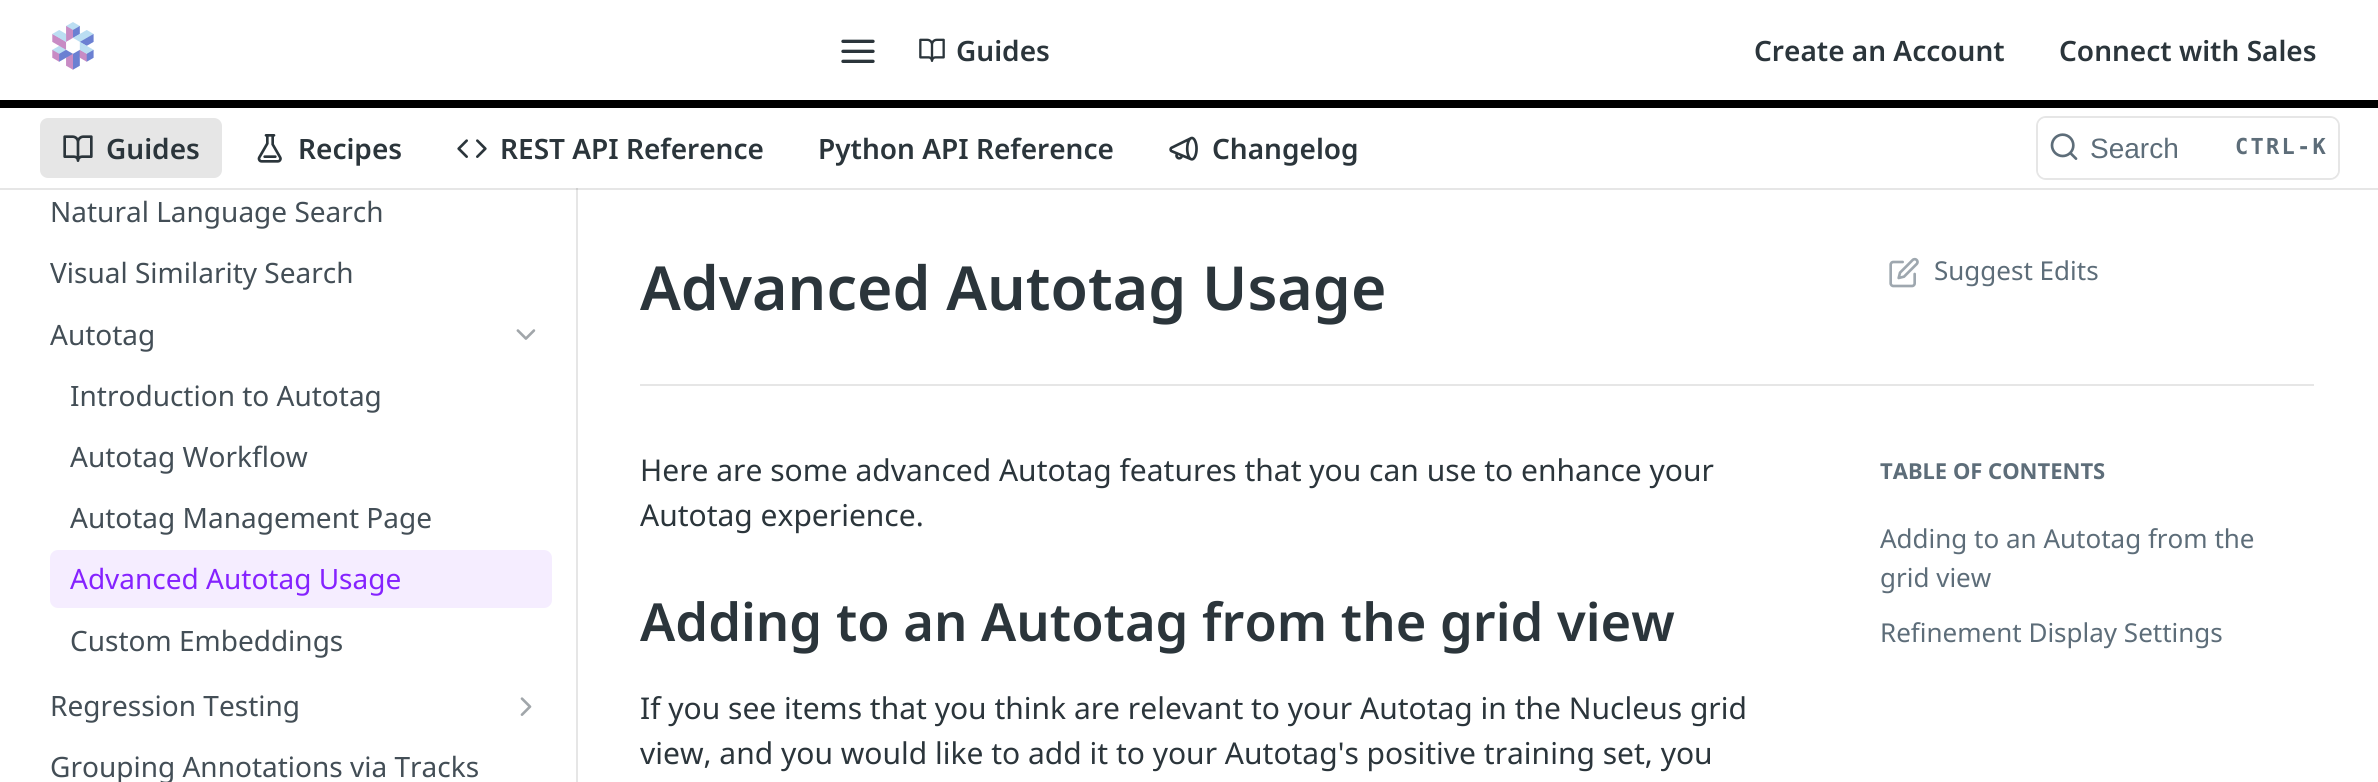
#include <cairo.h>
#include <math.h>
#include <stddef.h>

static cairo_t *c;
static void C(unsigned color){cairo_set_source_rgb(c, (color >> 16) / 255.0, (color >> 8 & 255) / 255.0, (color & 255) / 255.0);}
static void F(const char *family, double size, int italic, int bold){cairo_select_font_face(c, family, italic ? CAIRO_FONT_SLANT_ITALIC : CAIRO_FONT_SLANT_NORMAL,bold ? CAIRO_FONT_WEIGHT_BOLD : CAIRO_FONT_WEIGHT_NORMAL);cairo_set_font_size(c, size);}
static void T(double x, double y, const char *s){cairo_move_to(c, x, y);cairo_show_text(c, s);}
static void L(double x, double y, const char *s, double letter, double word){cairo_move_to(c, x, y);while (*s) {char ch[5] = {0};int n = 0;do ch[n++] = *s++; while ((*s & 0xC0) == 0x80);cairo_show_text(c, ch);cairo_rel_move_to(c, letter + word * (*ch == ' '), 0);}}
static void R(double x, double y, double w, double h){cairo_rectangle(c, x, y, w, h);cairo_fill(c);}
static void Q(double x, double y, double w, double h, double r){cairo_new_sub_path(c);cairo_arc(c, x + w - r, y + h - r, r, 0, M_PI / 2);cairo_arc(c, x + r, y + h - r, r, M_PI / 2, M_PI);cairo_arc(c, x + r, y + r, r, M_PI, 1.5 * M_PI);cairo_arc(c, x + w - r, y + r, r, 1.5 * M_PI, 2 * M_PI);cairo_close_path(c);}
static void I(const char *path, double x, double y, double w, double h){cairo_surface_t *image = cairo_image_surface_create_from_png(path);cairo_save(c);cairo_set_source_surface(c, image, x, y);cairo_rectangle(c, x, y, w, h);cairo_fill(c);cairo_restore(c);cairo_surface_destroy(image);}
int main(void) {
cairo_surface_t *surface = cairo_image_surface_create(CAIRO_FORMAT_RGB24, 2378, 782);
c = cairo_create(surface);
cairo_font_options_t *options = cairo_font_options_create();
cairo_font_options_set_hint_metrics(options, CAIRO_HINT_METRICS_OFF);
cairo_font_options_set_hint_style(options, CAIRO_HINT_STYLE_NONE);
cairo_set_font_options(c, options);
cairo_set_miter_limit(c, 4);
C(0xffffff);
cairo_paint(c);
C(0xe6e6e6);
R(0,188,2378,2);
C(0x000000);
R(0,100,2378,8);
I("1.png",52,22,42,48);
I("2.png",841,39,34,24);
I("3.png",919,38,26,24);
F("Noto Sans SemiBold",28,0,0);
C(0x2b353b);
T(956,61,"Guides");
T(1754,61,"Create an Account");
T(2059,61,"Connect with Sales");
C(0xe6e6e6);
Q(40,118,182,60,8);
cairo_fill(c);
I("4.png",63,135,30,27);
C(0x2b353b);
T(106,159,"Guides");
I("5.png",257,134,25,29);
T(298,159,"Recipes");
I("6.png",457,139,30,19);
T(500,159,"REST API Reference");
T(818,159,"Python API Reference");
I("7.png",1169,136,29,25);
T(1212,159,"Changelog");
Q(2037,117,302,62,9);
C(0xe6e6e6);
cairo_stroke(c);
C(0xffffff);
Q(2038,118,300,60,8);
cairo_fill(c);
I("8.png",2050,133,28,27);
F("Liberation Sans",28,0,0);
C(0x5d6d79);
T(2090,158,"Search");
F("DejaVu Sans Mono",22,0,1);
L(2235,154,"CTRL-K",2.25,0);
C(0xe6e6e6);
R(576,188,2,594);
C(0xcfcfcf);
R(576,188,2,2);
F("Noto Sans",28,0,0);
C(0x434e56);
T(50,222,"Natural Language Search");
T(50,283,"Visual Similarity Search");
T(50,345,"Autotag");
I("9.png",516,329,20,11);
T(70,406,"Introduction to Autotag");
T(70,467,"Autotag Workflow");
T(70,528,"Autotag Management Page");
C(0xf5edff);
Q(50,550,502,58,8);
cairo_fill(c);
C(0x8522ff);
T(70,589,"Advanced Autotag Usage");
C(0x434e56);
T(70,651,"Custom Embeddings");
T(50,716,"Regression Testing");
I("10.png",520,697,12,19);
T(50,777,"Grouping Annotations via Tracks");
C(0xe6e6e6);
R(640,384,1674,2);
F("Noto Sans SemiBold",60.75,0,0);
C(0x2b353b);
T(640,310,"Advanced Autotag Usage");
I("11.png",1889,257,30,31);
F("Noto Sans",26,0,0);
C(0x5d6d79);
T(1934,280,"Suggest Edits");
F("Noto Sans",30,0,0);
C(0x2b353b);
T(640,481,"Here are some advanced Autotag features that you can use to enhance your");
T(640,526,"Autotag experience.");
F("Noto Sans SemiBold",52.5,0,0);
T(640,641,"Adding to an Autotag from the grid view");
F("Noto Sans",30,0,0);
T(640,719,"If you see items that you think are relevant to your Autotag in the Nucleus grid");
T(640,764,"view, and you would like to add it to your Autotag's positive training set, you");
F("Noto Sans",22,0,1);
C(0x5d6d79);
T(1880,479,"TABLE OF CONTENTS");
F("Noto Sans",26,0,0);
T(1880,548,"Adding to an Autotag from the");
T(1880,587,"grid view");
T(1880,642,"Refinement Display Settings");
cairo_surface_write_to_png(surface, "o.png");
cairo_font_options_destroy(options);
cairo_destroy(c);
cairo_surface_destroy(surface);
return 0;
}
